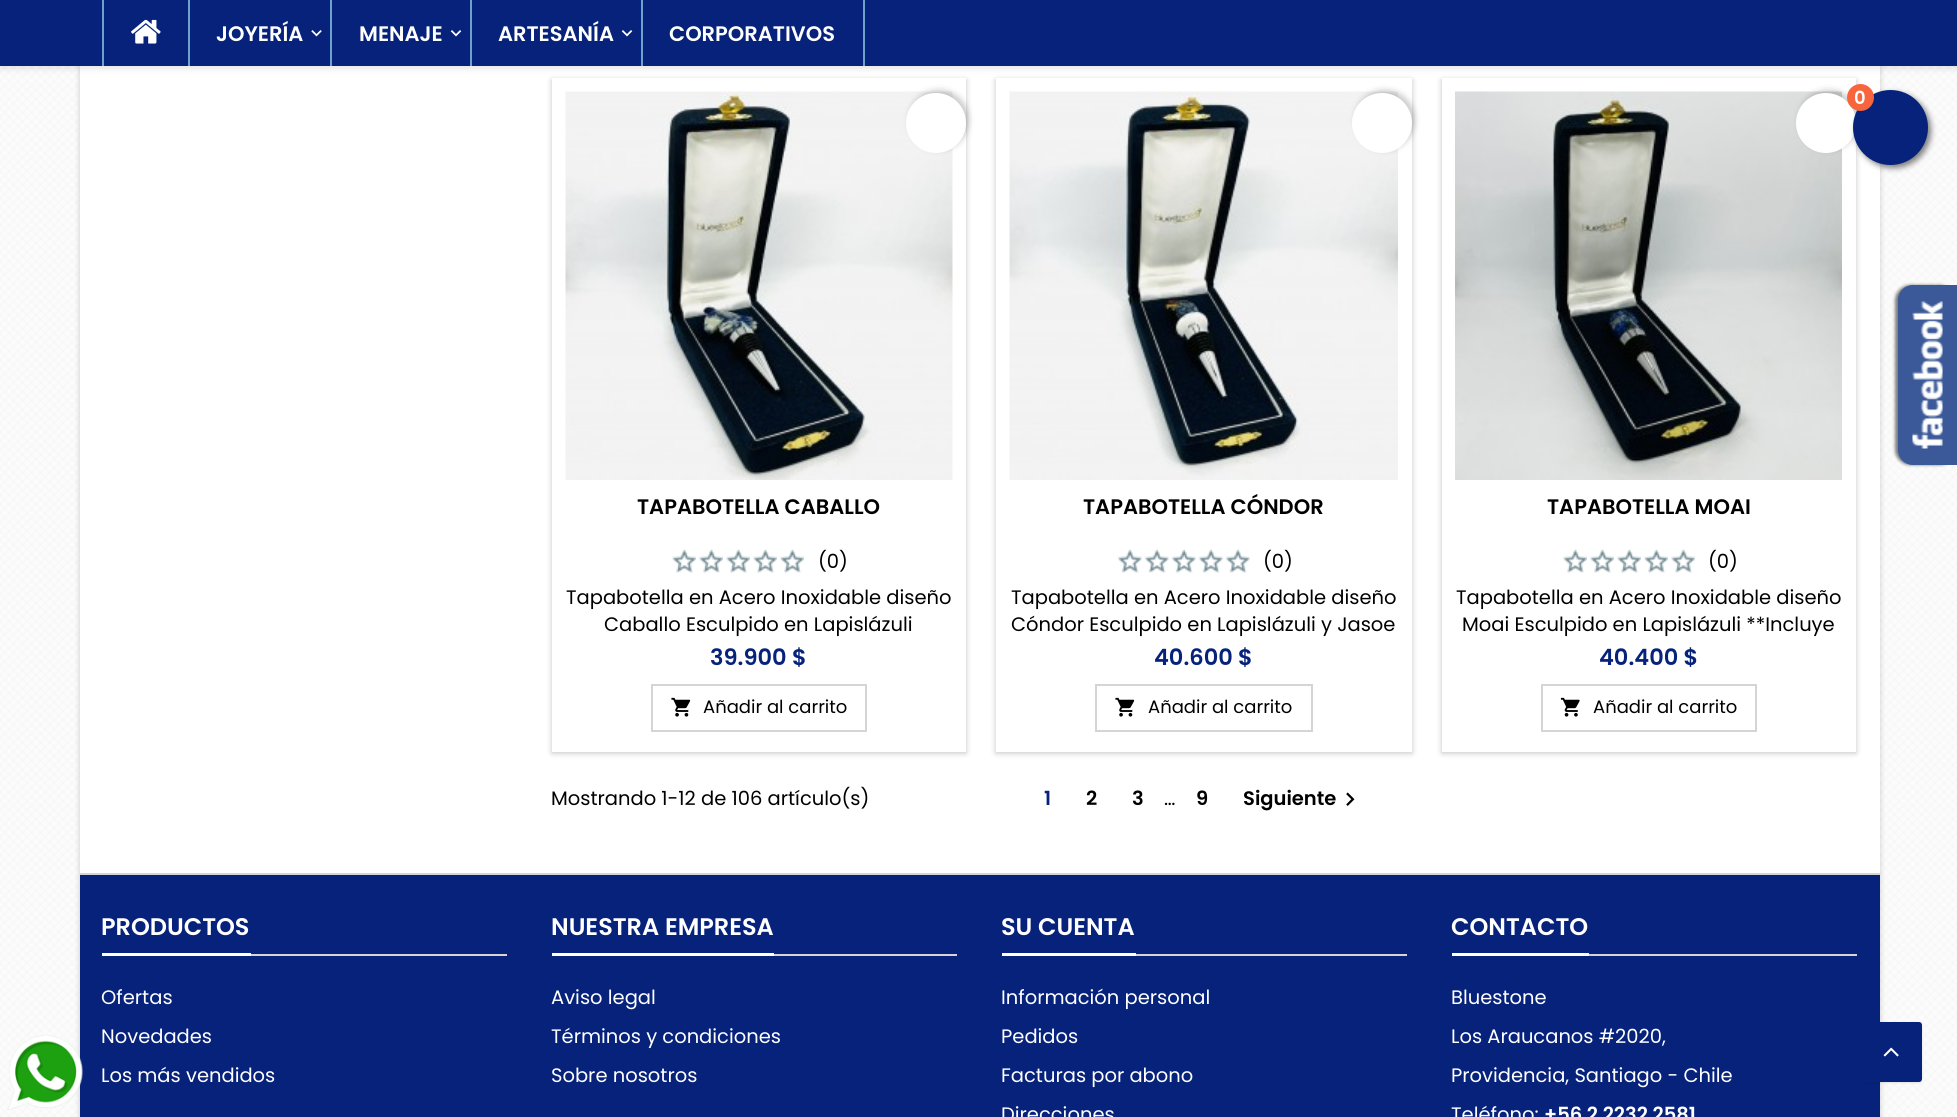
#include <cairo.h>
#include <math.h>
#include <stddef.h>

static cairo_t *c;
static void C(unsigned color){cairo_set_source_rgb(c, (color >> 16) / 255.0, (color >> 8 & 255) / 255.0, (color & 255) / 255.0);}
static void F(const char *family, double size, int italic, int bold){cairo_select_font_face(c, family, italic ? CAIRO_FONT_SLANT_ITALIC : CAIRO_FONT_SLANT_NORMAL,bold ? CAIRO_FONT_WEIGHT_BOLD : CAIRO_FONT_WEIGHT_NORMAL);cairo_set_font_size(c, size);}
static void T(double x, double y, const char *s){cairo_move_to(c, x, y);cairo_show_text(c, s);}
static void R(double x, double y, double w, double h){cairo_rectangle(c, x, y, w, h);cairo_fill(c);}
static void Q(double x, double y, double w, double h, double r){cairo_new_sub_path(c);cairo_arc(c, x + w - r, y + h - r, r, 0, M_PI / 2);cairo_arc(c, x + r, y + h - r, r, M_PI / 2, M_PI);cairo_arc(c, x + r, y + r, r, M_PI, 1.5 * M_PI);cairo_arc(c, x + w - r, y + r, r, 1.5 * M_PI, 2 * M_PI);cairo_close_path(c);}
static void S(double x, double y, double w, double h, double r, double blur, double alpha){cairo_push_group_with_content(c, CAIRO_CONTENT_ALPHA);cairo_set_operator(c, CAIRO_OPERATOR_SOURCE);for (int i = 15; i >= -15 && fmin(w, h) + blur * i / 3 > 0; i -= 2) {double e = blur * i / 6;cairo_set_source_rgba(c, 0, 0, 0, alpha * erfc((i - 1) / 8.5) / 2);Q(x - e, y - e, w + 2 * e, h + 2 * e, fmax(0, fmin(r + e + blur * .6, fmin(w, h) / 2 + e)));cairo_fill(c);}cairo_pattern_t *soft = cairo_pop_group(c);cairo_mask(c, soft);cairo_pattern_destroy(soft);}
static void I(const char *path, double x, double y, double w, double h){cairo_surface_t *image = cairo_image_surface_create_from_png(path);cairo_save(c);cairo_set_source_surface(c, image, x, y);cairo_rectangle(c, x, y, w, h);cairo_fill(c);cairo_restore(c);cairo_surface_destroy(image);}
int main(void) {
cairo_surface_t *surface = cairo_image_surface_create(CAIRO_FORMAT_RGB24, 1957, 1117);
c = cairo_create(surface);
cairo_font_options_t *options = cairo_font_options_create();
cairo_font_options_set_hint_metrics(options, CAIRO_HINT_METRICS_OFF);
cairo_font_options_set_hint_style(options, CAIRO_HINT_STYLE_NONE);
cairo_set_font_options(c, options);
cairo_set_miter_limit(c, 4);
C(0xffffff);
cairo_paint(c);
I("1.png",0,66,1957,1051);
C(0x000000);
S(80,-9,1800,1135,0,3,.2);
C(0xffffff);
R(80,66,1800,807);
C(0x000000);
S(552,80,414,673,0,3,.24);
C(0xffffff);
R(552,78,414,674);
C(0x000000);
S(996,80,416,673,0,3,.24);
C(0xffffff);
R(996,78,416,674);
C(0x000000);
S(1442,80,414,673,0,3,.24);
C(0xffffff);
R(1442,78,414,674);
C(0x000000);
S(0,3,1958,66,0,3,.1);
C(0x06227b);
R(0,0,1957,66);
C(0x6ea2cd);
R(102,0,2,66);
I("2.png",131,19,30,25);
R(188,0,2,66);
F("Poppins SemiBold",21,0,0);
C(0xffffff);
T(216,41,"JOYERÍA");
I("3.png",311,30,11,7);
C(0x6ea2cd);
R(330,0,2,66);
C(0xffffff);
T(359,41,"MENAJE");
I("4.png",450,30,12,7);
C(0x6ea2cd);
R(470,0,2,66);
C(0xffffff);
T(498,41,"ARTESANÍA");
I("4.png",621,30,12,7);
C(0x6ea2cd);
R(863,0,2,66);
R(641,0,2,66);
C(0xffffff);
T(669,41,"CORPORATIVOS");
I("14.png",1455,91,387,389);
C(0x000000);
S(1799,90,60,60,30,3,.2);
C(0xffffff);
cairo_arc(c,1826,123,30,0,2 * M_PI);
cairo_fill(c);
C(0x000000);
S(1856,93,75,75,37.5,3,.5);
C(0x06227b);
cairo_arc(c,1890.5,127.5,37.5,0,2 * M_PI);
cairo_fill(c);
C(0xf8653d);
cairo_arc(c,1860.5,97.5,13.5,0,2 * M_PI);
cairo_fill(c);
F("Poppins SemiBold",18,0,0);
C(0xffffff);
T(1854,104,"0");
C(0x000000);
S(1895,285,60,180,15,1.5,.5);
C(0x3b5998);
cairo_new_path(c);
cairo_move_to(c,1913,285);
cairo_line_to(c,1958,285);
cairo_line_to(c,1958,465);
cairo_line_to(c,1913,465);
cairo_curve_to(c,1904.5,465,1898,458.5,1898,450);
cairo_line_to(c,1898,300);
cairo_curve_to(c,1898,291.5,1904.5,285,1913,285);
cairo_close_path(c);
cairo_fill(c);
I("5.png",1912,301,31,148);
I("6.png",565,91,388,389);
C(0x000000);
S(909,90,60,60,30,3,.2);
C(0xffffff);
cairo_arc(c,936,123,30,0,2 * M_PI);
cairo_fill(c);
F("Poppins SemiBold",21,0,0);
C(0x000000);
T(637,514,"TAPABOTELLA CABALLO");
I("7.png",672,549,24,24);
I("7.png",699,549,24,24);
I("8.png",726,549,24,24);
I("9.png",753,549,24,24);
I("7.png",780,549,24,24);
F("Poppins",19.5,0,0);
T(818,568,"(0)");
T(566,604,"Tapabotella en Acero Inoxidable diseño");
T(604,631,"Caballo Esculpido en Lapislázuli");
F("Poppins SemiBold",22.5,0,0);
C(0x06227b);
T(710,665,"39.900 $");
cairo_rectangle(c,652,685,214,46);
C(0xd6d4d4);
cairo_stroke(c);
I("10.png",671,697,20,20);
F("Poppins",18,0,0);
C(0x000000);
T(703,713,"Añadir al carrito");
I("11.png",1009,91,389,389);
C(0x000000);
S(1355,90,60,60,30,3,.2);
C(0xffffff);
cairo_arc(c,1382,123,30,0,2 * M_PI);
cairo_fill(c);
F("Poppins SemiBold",21,0,0);
C(0x000000);
T(1083,514,"TAPABOTELLA CÓNDOR");
I("12.png",1117,549,25,24);
I("12.png",1144,549,25,24);
I("12.png",1171,549,25,24);
I("12.png",1198,549,25,24);
I("13.png",1225,549,25,24);
F("Poppins",19.5,0,0);
T(1263,568,"(0)");
T(1011,604,"Tapabotella en Acero Inoxidable diseño");
T(1011,631,"Cóndor Esculpido en Lapislázuli y Jasoe");
F("Poppins SemiBold",22.5,0,0);
C(0x06227b);
T(1154,665,"40.600 $");
cairo_rectangle(c,1096,685,216,46);
C(0xd6d4d4);
cairo_stroke(c);
I("10.png",1115,697,20,20);
F("Poppins",18,0,0);
C(0x000000);
T(1148,713,"Añadir al carrito");
F("Poppins SemiBold",21,0,0);
T(1547,514,"TAPABOTELLA MOAI");
I("7.png",1563,549,24,24);
I("7.png",1590,549,24,24);
I("7.png",1617,549,24,24);
I("7.png",1644,549,24,24);
I("7.png",1671,549,24,24);
F("Poppins",19.5,0,0);
T(1708,568,"(0)");
T(1456,604,"Tapabotella en Acero Inoxidable diseño");
T(1462,631,"Moai Esculpido en Lapislázuli **Incluye");
F("Poppins SemiBold",22.5,0,0);
C(0x06227b);
T(1599,665,"40.400 $");
cairo_rectangle(c,1542,685,214,46);
C(0xd6d4d4);
cairo_stroke(c);
I("15.png",1560,697,20,20);
F("Poppins",18,0,0);
C(0x000000);
T(1593,713,"Añadir al carrito");
F("Poppins",19.5,0,0);
T(551,805,"Mostrando 1-12 de 106 artículo(s)");
F("Poppins SemiBold",19.5,0,0);
C(0x06227b);
T(1044,805,"1");
C(0x000000);
T(1086,805,"2");
T(1132,805,"3");
F("Poppins",19.5,0,0);
T(1164,805,"…");
F("Poppins SemiBold",19.5,0,0);
T(1196,805,"9");
T(1243,805,"Siguiente");
I("16.png",1346,792,9,14);
C(0x06227b);
R(80,875,1800,242);
C(0xd6d4d4);
R(80,873,1800,2);
I("17.png",7,1035,76,75);
R(251,954,256,2);
C(0xffffff);
R(102,953,149,3);
F("Poppins SemiBold",24,0,0);
T(101,935,"PRODUCTOS");
F("Poppins",19.5,0,0);
T(101,1004,"Ofertas");
T(101,1043,"Novedades");
T(101,1082,"Los más vendidos");
C(0xd6d4d4);
R(774,954,183,2);
C(0xffffff);
R(552,953,222,3);
F("Poppins SemiBold",24,0,0);
T(551,935,"NUESTRA EMPRESA");
F("Poppins",19.5,0,0);
T(551,1004,"Aviso legal");
T(551,1043,"Términos y condiciones");
T(551,1082,"Sobre nosotros");
C(0xd6d4d4);
R(1136,954,271,2);
C(0xffffff);
R(1002,953,134,3);
F("Poppins SemiBold",24,0,0);
T(1001,935,"SU CUENTA");
F("Poppins",19.5,0,0);
T(1001,1004,"Información personal");
T(1001,1043,"Pedidos");
T(1001,1082,"Facturas por abono");
T(1001,1121,"Direcciones");
C(0xd6d4d4);
R(1589,954,268,2);
C(0xffffff);
R(1452,953,137,3);
F("Poppins SemiBold",24,0,0);
T(1451,935,"CONTACTO");
F("Poppins",19.5,0,0);
T(1451,1004,"Bluestone");
T(1451,1043,"Los Araucanos #2020,");
T(1451,1082,"Providencia, Santiago - Chile");
T(1451,1121,"Teléfono:");
F("Poppins SemiBold",19.5,0,0);
T(1544,1121,"+56 2 2232 2581");
C(0x000000);
S(1862,1023,60,60,3,1,.1);
C(0x06227b);
Q(1862,1022,60,60,3);
cairo_fill(c);
I("18.png",1883,1047,16,10);
cairo_surface_write_to_png(surface, "o.png");
cairo_font_options_destroy(options);
cairo_destroy(c);
cairo_surface_destroy(surface);
return 0;
}
